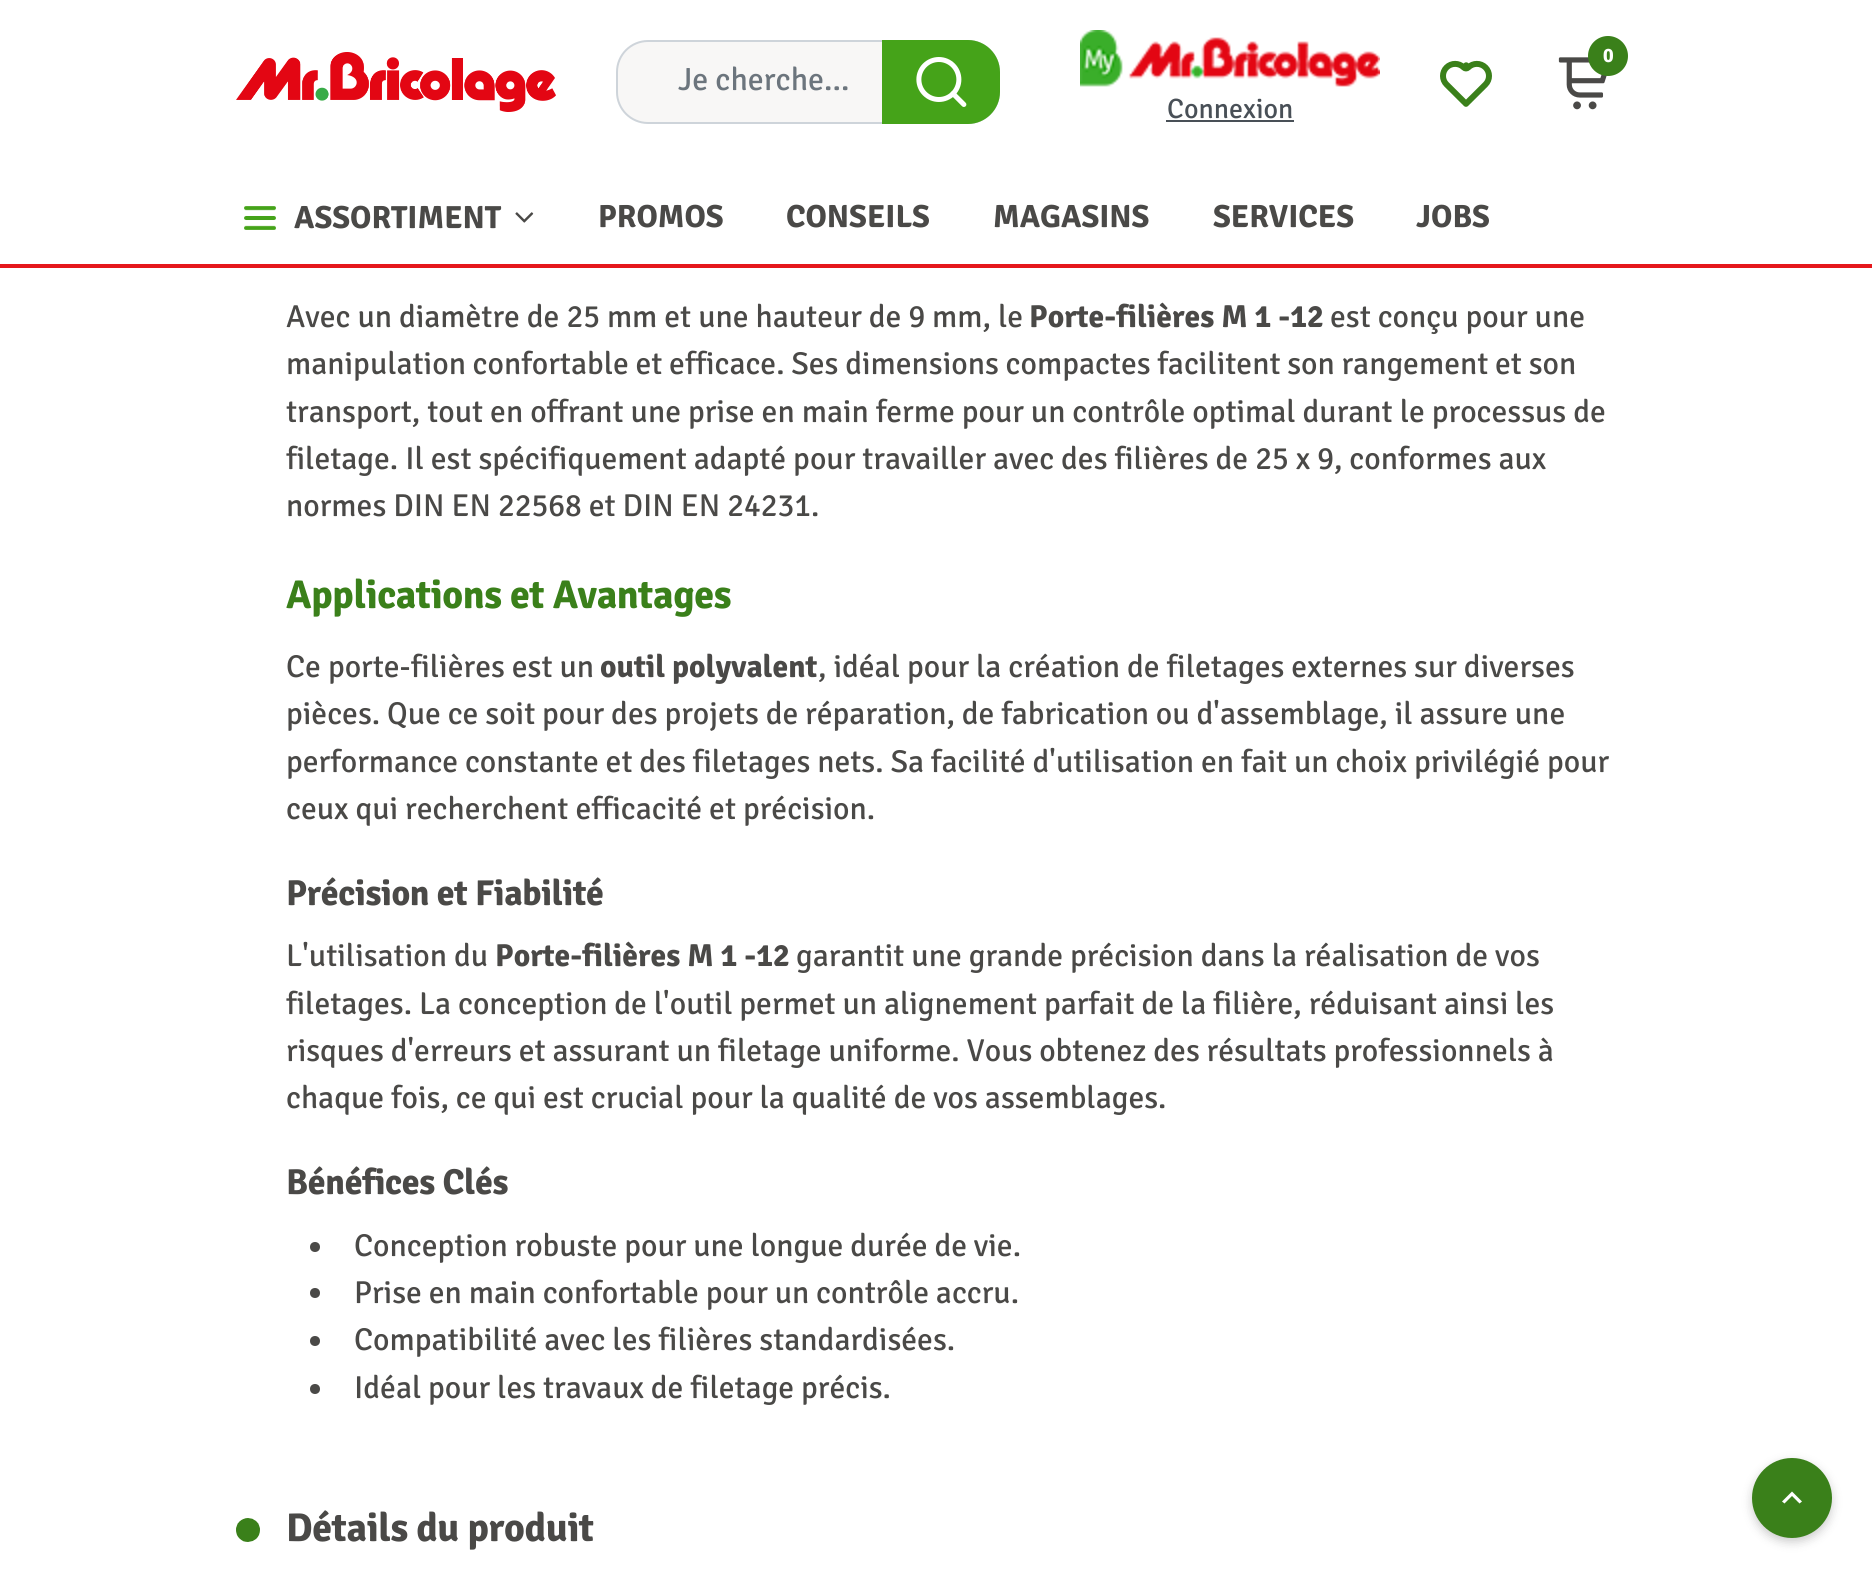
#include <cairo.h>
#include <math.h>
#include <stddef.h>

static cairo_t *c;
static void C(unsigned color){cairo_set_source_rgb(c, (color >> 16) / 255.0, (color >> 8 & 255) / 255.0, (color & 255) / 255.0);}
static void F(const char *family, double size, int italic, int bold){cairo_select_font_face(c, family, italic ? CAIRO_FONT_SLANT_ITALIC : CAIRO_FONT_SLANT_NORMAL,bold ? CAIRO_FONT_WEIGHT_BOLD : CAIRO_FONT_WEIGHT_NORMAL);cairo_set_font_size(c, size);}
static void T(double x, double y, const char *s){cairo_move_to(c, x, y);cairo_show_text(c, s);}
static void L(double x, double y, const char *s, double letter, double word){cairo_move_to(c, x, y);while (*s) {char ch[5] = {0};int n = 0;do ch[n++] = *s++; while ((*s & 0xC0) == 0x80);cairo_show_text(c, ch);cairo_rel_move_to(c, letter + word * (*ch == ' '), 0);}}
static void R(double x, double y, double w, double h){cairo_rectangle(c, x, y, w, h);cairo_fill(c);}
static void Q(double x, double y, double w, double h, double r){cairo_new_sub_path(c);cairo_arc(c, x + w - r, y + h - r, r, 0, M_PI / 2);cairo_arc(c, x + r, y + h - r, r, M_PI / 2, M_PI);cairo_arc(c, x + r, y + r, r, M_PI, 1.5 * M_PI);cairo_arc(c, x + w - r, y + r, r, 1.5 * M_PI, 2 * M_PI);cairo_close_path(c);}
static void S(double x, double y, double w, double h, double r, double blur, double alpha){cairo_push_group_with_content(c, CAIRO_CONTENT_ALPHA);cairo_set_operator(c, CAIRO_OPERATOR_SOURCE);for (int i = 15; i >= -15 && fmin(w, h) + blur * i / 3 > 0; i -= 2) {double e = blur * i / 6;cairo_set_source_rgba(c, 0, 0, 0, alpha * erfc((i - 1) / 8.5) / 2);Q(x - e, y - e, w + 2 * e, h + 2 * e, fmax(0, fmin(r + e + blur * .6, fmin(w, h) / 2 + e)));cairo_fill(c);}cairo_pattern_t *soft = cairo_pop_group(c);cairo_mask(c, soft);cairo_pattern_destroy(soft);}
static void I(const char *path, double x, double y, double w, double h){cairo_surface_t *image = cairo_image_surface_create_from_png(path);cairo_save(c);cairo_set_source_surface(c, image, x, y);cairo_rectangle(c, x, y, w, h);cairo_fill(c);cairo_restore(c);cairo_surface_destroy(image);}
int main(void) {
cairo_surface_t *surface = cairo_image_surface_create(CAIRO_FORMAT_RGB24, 1872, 1578);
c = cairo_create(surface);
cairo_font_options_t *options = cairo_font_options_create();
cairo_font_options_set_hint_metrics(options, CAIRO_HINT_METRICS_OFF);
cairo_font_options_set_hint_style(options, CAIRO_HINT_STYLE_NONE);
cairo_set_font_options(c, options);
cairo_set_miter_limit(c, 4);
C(0xffffff);
cairo_paint(c);
C(0xe5171c);
R(0,264,1872,4);
I("1.png",236,52,320,60);
C(0xf8f7f6);
Q(617,41,382,82,31);
cairo_fill_preserve(c);
C(0xced4da);
cairo_stroke(c);
F("Signika",32,0,0);
C(0x6c757d);
T(678,90,"Je cherche...");
C(0x45a319);
cairo_new_path(c);
cairo_move_to(c,882,40);
cairo_line_to(c,968,40);
cairo_curve_to(c,985.5,40,1000,54.5,1000,72);
cairo_line_to(c,1000,92);
cairo_curve_to(c,1000,109.5,985.5,124,968,124);
cairo_line_to(c,882,124);
cairo_close_path(c);
cairo_fill(c);
I("2.png",916,57,51,50);
I("3.png",1440,60,52,47);
I("4.png",1558,57,49,53);
C(0x3a801a);
cairo_arc(c,1608,56,20,0,2 * M_PI);
cairo_fill(c);
F("Signika",20,0,1);
C(0xffffff);
T(1603,62,"0");
I("5.png",1080,30,300,57);
F("Signika",28,0,0);
C(0x495057);
T(1167,118,"Connexion");
R(1166,120,128,2);
I("6.png",244,206,32,24);
F("Signika",32,0,1);
C(0x4a4947);
T(294,228,"ASSORTIMENT");
I("7.png",515,212,19,11);
T(598,227,"PROMOS");
T(786,227,"CONSEILS");
T(993,227,"MAGASINS");
T(1213,227,"SERVICES");
T(1416,227,"JOBS");
F("Signika",31.65,0,0);
T(286,327,"Avec un diamètre de 25 mm et une hauteur de 9 mm, le");
F("Signika",31.65,0,1);
T(1029,327,"Porte-filières M 1 -12");
F("Signika",31.65,0,0);
T(1330,327,"est conçu pour une");
L(286,374,"manipulation confortable et efficace. Ses dimensions compactes facilitent son rangement et son",0,-.25);
T(286,422,"transport, tout en offrant une prise en main ferme pour un contrôle optimal durant le processus de");
T(286,469,"filetage. Il est spécifiquement adapté pour travailler avec des filières de 25 x 9, conformes aux");
T(286,516,"normes DIN EN 22568 et DIN EN 24231.");
F("Signika",40,0,1);
C(0x3a801a);
L(286,608,"Applications et Avantages",-.35,0);
F("Signika",31.65,0,0);
C(0x4a4947);
T(286,677,"Ce porte-filières est un");
F("Signika",31.65,0,1);
T(600,677,"outil polyvalent");
F("Signika",31.65,0,0);
T(818,677,", idéal pour la création de filetages externes sur diverses");
L(286,724,"pièces. Que ce soit pour des projets de réparation, de fabrication ou d'assemblage, il assure une",0,-.1);
L(286,772,"performance constante et des filetages nets. Sa facilité d'utilisation en fait un choix privilégié pour",0,-.1);
T(286,819,"ceux qui recherchent efficacité et précision.");
F("Signika",36,0,1);
L(286,905,"Précision et Fiabilité",-.35,0);
F("Signika",31.65,0,0);
T(286,966,"L'utilisation du");
F("Signika",31.65,0,1);
T(495,966,"Porte-filières M 1 -12");
F("Signika",31.65,0,0);
T(796,966,"garantit une grande précision dans la réalisation de vos");
L(286,1014,"filetages. La conception de l'outil permet un alignement parfait de la filière, réduisant ainsi les",0,-.1);
L(286,1061,"risques d'erreurs et assurant un filetage uniforme. Vous obtenez des résultats professionnels à",0,-.1);
T(286,1108,"chaque fois, ce qui est crucial pour la qualité de vos assemblages.");
F("Signika",36,0,1);
L(286,1194,"Bénéfices Clés",-.35,0);
cairo_new_path(c);
cairo_arc(c,315,1247,5,0,2 * M_PI);
cairo_fill(c);
F("Signika",31.65,0,0);
L(354,1256,"Conception robuste pour une longue durée de vie.",0,-.1);
cairo_new_path(c);
cairo_arc(c,315,1293,5,0,2 * M_PI);
cairo_fill(c);
L(354,1303,"Prise en main confortable pour un contrôle accru.",0,-.1);
cairo_new_path(c);
cairo_arc(c,315,1341,5,0,2 * M_PI);
cairo_fill(c);
T(354,1350,"Compatibilité avec les filières standardisées.");
cairo_new_path(c);
cairo_arc(c,315,1389,5,0,2 * M_PI);
cairo_fill(c);
L(354,1398,"Idéal pour les travaux de filetage précis.",0,-.1);
I("8.png",236,1518,24,24);
F("Signika",40,0,1);
L(286,1541,"Détails du produit",-.35,0);
C(0x000000);
S(1752,1462,80,80,40,5,.2);
C(0x3a801a);
cairo_arc(c,1792,1498,40,0,2 * M_PI);
cairo_fill(c);
C(0xffffff);
cairo_new_path(c);
cairo_move_to(c,1784.5,1503.5);
cairo_line_to(c,1782,1501.5);
cairo_line_to(c,1792,1491.5);
cairo_line_to(c,1802,1501.5);
cairo_line_to(c,1799.5,1503.5);
cairo_line_to(c,1792,1496);
cairo_close_path(c);
cairo_fill(c);
cairo_surface_write_to_png(surface, "o.png");
cairo_font_options_destroy(options);
cairo_destroy(c);
cairo_surface_destroy(surface);
return 0;
}
